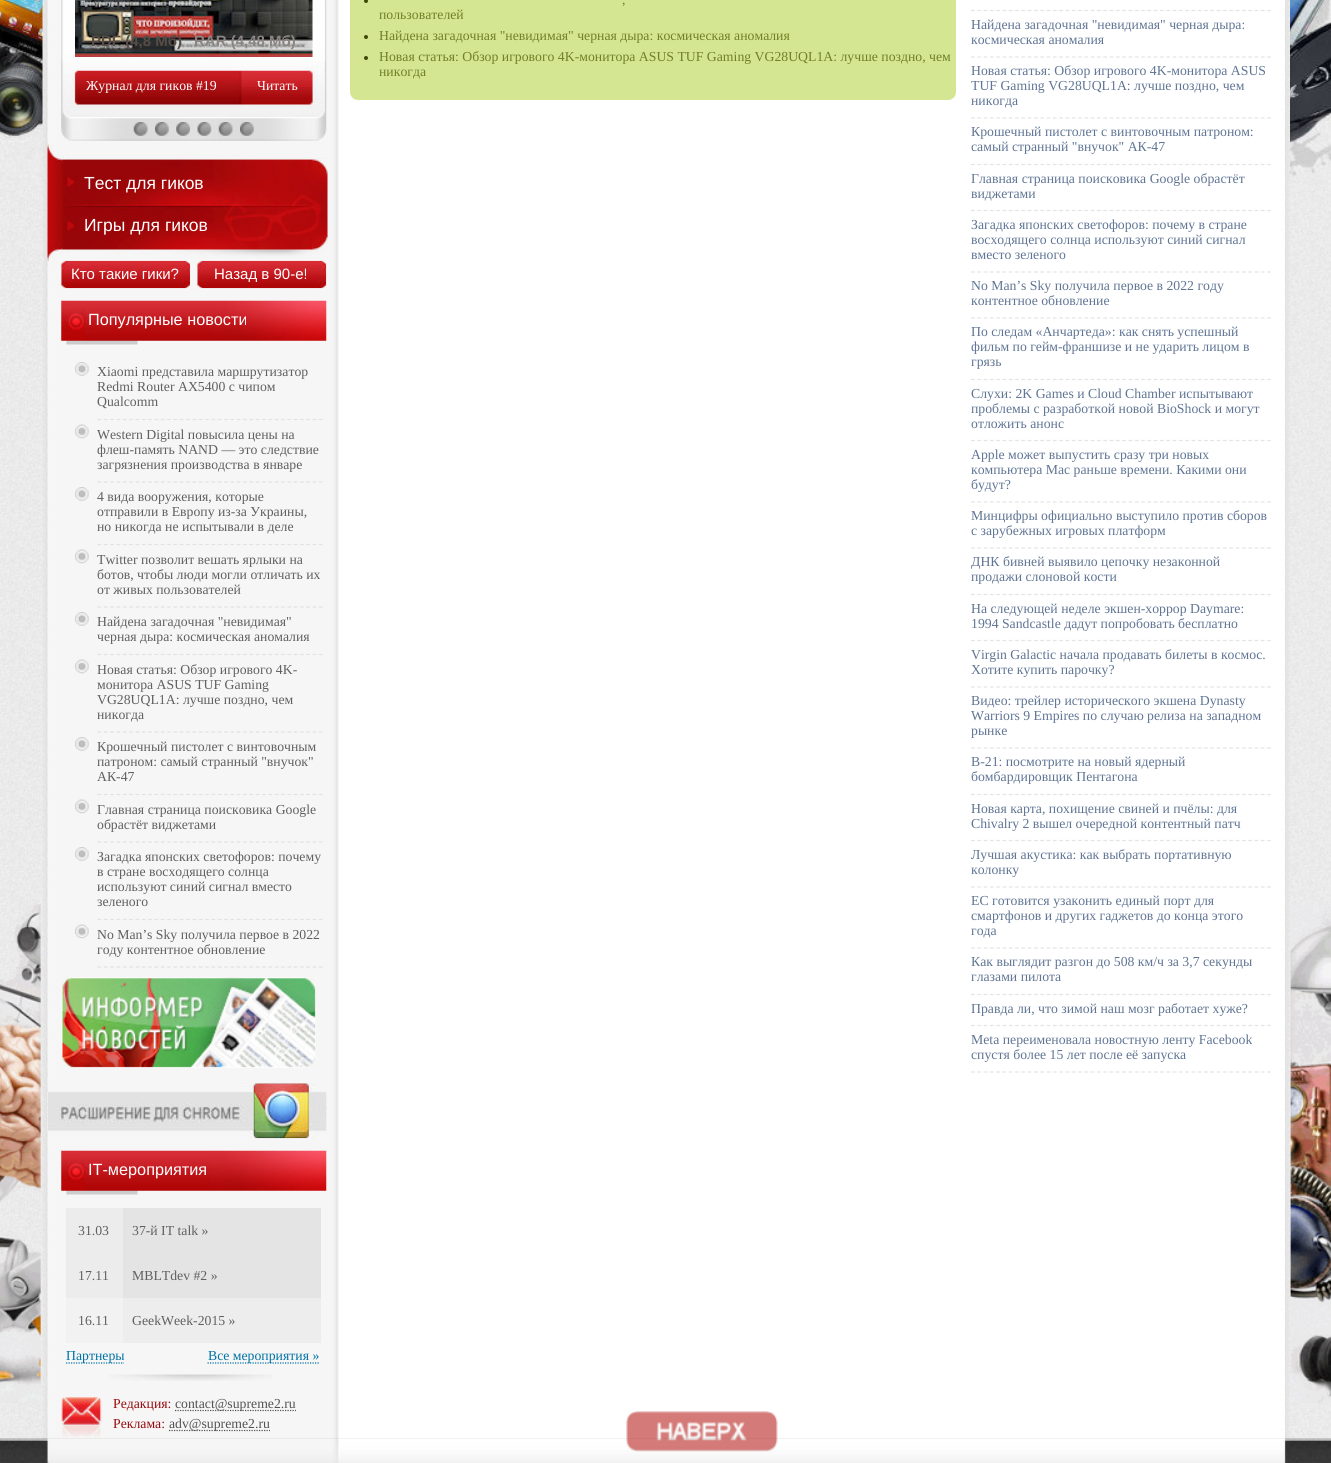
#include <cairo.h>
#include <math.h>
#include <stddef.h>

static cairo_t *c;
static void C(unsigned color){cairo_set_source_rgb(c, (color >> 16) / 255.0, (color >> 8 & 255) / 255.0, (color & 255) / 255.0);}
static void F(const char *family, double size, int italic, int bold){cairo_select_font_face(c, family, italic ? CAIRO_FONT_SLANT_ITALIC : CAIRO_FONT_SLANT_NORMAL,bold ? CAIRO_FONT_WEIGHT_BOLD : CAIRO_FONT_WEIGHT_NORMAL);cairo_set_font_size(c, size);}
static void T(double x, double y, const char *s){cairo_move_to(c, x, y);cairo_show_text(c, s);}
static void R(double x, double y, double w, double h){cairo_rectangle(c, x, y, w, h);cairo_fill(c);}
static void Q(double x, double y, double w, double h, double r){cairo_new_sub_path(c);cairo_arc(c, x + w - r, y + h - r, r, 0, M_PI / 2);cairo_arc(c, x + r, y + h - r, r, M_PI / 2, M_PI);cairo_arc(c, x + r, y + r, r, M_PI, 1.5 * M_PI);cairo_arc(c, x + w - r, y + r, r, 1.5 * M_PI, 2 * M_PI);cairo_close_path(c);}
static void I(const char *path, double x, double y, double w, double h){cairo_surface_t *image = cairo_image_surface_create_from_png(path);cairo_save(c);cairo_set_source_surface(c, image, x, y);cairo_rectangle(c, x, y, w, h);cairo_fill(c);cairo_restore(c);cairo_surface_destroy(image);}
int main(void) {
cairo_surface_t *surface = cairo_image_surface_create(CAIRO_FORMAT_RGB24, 1331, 1463);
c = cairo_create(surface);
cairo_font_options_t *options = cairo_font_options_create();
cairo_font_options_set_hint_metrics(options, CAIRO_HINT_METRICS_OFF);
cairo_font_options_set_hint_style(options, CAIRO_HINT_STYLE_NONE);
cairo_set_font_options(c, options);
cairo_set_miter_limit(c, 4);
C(0xffffff);
cairo_paint(c);
I("1.png",0,1026,1331,413);
I("2.png",0,183,1331,843);
I("3.png",0,0,1331,184);
I("26.png",0,904,1331,499);
I("4.png",42,0,1248,1438);
I("5.png",61,0,266,141);
I("6.png",75,0,238,57);
F("Liberation Sans",15,0,1);
C(0x584c47);
T(91,46,"PDF (4,8 Мб)");
C(0x8a8483);
T(194,46,"RAR (4,48 Мб)");
F("Liberation Serif",13.75,0,0);
C(0xffffff);
T(86,90,"Журнал для гиков #19");
T(257,90,"Читать");
I("7.png",133,122,15,14);
I("8.png",155,122,14,14);
I("9.png",176,122,14,14);
I("10.png",197,122,15,14);
I("11.png",218,122,15,14);
I("12.png",240,122,14,14);
I("13.png",47,144,281,119);
F("Liberation Sans",17.5,0,0);
T(84,189,"Тест для гиков");
T(84,231,"Игры для гиков");
I("14.png",61,260,129,29);
F("Liberation Sans",15,0,0);
T(71,279,"Кто такие гики?");
I("15.png",197,260,130,29);
T(214,279,"Назад в 90-е!");
I("16.png",61,300,266,45);
F("Liberation Sans",16.25,0,0);
T(88,325,"Популярные новости");
cairo_new_path(c);
cairo_move_to(c,97.5,419.5);
cairo_line_to(c,322.5,419.5);
C(0xe2e2e2);
cairo_set_line_width(c,1.2);
cairo_set_dash(c,(double[]){3.75,2.58},2,0);
cairo_stroke(c);
I("17.png",75,362,14,14);
F("Liberation Serif",13.75,0,0);
C(0x606060);
T(97,376,"Xiaomi представила маршрутизатор");
T(97,391,"Redmi Router AX5400 с чипом");
T(97,406,"Qualcomm");
cairo_new_path(c);
cairo_move_to(c,97.5,482);
cairo_line_to(c,322.5,482);
C(0xe2e2e2);
cairo_stroke(c);
I("18.png",75,424,14,15);
C(0x606060);
T(97,439,"Western Digital повысила цены на");
T(97,454,"флеш-память NAND — это следствие");
T(97,469,"загрязнения производства в январе");
cairo_new_path(c);
cairo_move_to(c,97.5,544.5);
cairo_line_to(c,322.5,544.5);
C(0xe2e2e2);
cairo_stroke(c);
I("17.png",75,487,14,14);
C(0x606060);
T(97,501,"4 вида вооружения, которые");
T(97,516,"отправили в Европу из-за Украины,");
T(97,531,"но никогда не испытывали в деле");
cairo_new_path(c);
cairo_move_to(c,97.5,607);
cairo_line_to(c,322.5,607);
C(0xe2e2e2);
cairo_stroke(c);
I("18.png",75,549,14,15);
C(0x606060);
T(97,564,"Twitter позволит вешать ярлыки на");
T(97,579,"ботов, чтобы люди могли отличать их");
T(97,594,"от живых пользователей");
cairo_new_path(c);
cairo_move_to(c,97.5,654.5);
cairo_line_to(c,322.5,654.5);
C(0xe2e2e2);
cairo_stroke(c);
I("17.png",75,612,14,14);
C(0x606060);
T(97,626,"Найдена загадочная \"невидимая\"");
T(97,641,"черная дыра: космическая аномалия");
cairo_new_path(c);
cairo_move_to(c,97.5,732);
cairo_line_to(c,322.5,732);
C(0xe2e2e2);
cairo_stroke(c);
I("18.png",75,659,14,15);
C(0x606060);
T(97,674,"Новая статья: Обзор игрового 4K-");
T(97,689,"монитора ASUS TUF Gaming");
T(97,704,"VG28UQL1A: лучше поздно, чем");
T(97,719,"никогда");
cairo_new_path(c);
cairo_move_to(c,97.5,794.5);
cairo_line_to(c,322.5,794.5);
C(0xe2e2e2);
cairo_stroke(c);
I("19.png",75,737,14,14);
C(0x606060);
T(97,751,"Крошечный пистолет с винтовочным");
T(97,766,"патроном: самый странный \"внучок\"");
T(97,781,"АК-47");
cairo_new_path(c);
cairo_move_to(c,97.5,842);
cairo_line_to(c,322.5,842);
C(0xe2e2e2);
cairo_stroke(c);
I("18.png",75,799,14,15);
C(0x606060);
T(97,814,"Главная страница поисковика Google");
T(97,829,"обрастёт виджетами");
cairo_new_path(c);
cairo_move_to(c,97.5,919.5);
cairo_line_to(c,322.5,919.5);
C(0xe2e2e2);
cairo_stroke(c);
I("17.png",75,847,14,14);
C(0x606060);
T(97,861,"Загадка японских светофоров: почему");
T(97,876,"в стране восходящего солнца");
T(97,891,"используют синий сигнал вместо");
T(97,906,"зеленого");
cairo_new_path(c);
cairo_move_to(c,97.5,967);
cairo_line_to(c,322.5,967);
C(0xe2e2e2);
cairo_stroke(c);
I("18.png",75,924,14,15);
C(0x606060);
T(97,939,"No Man’s Sky получила первое в 2022");
T(97,954,"году контентное обновление");
I("20.png",61,977,255,91);
I("21.png",48,1083,279,56);
I("16.png",61,1150,266,45);
F("Liberation Sans",16.25,0,0);
C(0xffffff);
T(88,1175,"IT-мероприятия");
C(0xececec);
R(66,1208,57,90);
F("Liberation Serif",13.75,0,0);
C(0x606060);
T(78,1235,"31.03");
C(0xe4e4e4);
R(123,1208,198,90);
C(0x606060);
T(132,1235,"37-й IT talk »");
T(78,1280,"17.11");
T(132,1280,"MBLTdev #2 »");
C(0xf2f2f2);
R(66,1298,57,45);
C(0x606060);
T(78,1325,"16.11");
C(0xededed);
R(123,1298,198,45);
C(0x606060);
T(132,1325,"GeekWeek-2015 »");
cairo_new_path(c);
cairo_move_to(c,66,1363);
cairo_line_to(c,124,1363);
C(0x0072a4);
cairo_set_dash(c,(double[]){1.25,1.25},2,0);
cairo_stroke(c);
T(66,1360,"Партнеры");
cairo_new_path(c);
cairo_move_to(c,207.5,1363);
cairo_line_to(c,320,1363);
cairo_stroke(c);
T(208,1360,"Все мероприятия »");
I("22.png",109,1374,164,7);
I("23.png",61,1397,41,40);
C(0x960b0e);
T(113,1408,"Редакция:");
cairo_new_path(c);
cairo_move_to(c,175,1410.5);
cairo_line_to(c,296,1410.5);
C(0x525252);
cairo_stroke(c);
T(175,1408,"contact@supreme2.ru");
C(0x960b0e);
T(113,1428,"Реклама:");
cairo_new_path(c);
cairo_move_to(c,169,1430.5);
cairo_line_to(c,270,1430.5);
C(0x525252);
cairo_stroke(c);
T(169,1428,"adv@supreme2.ru");
C(0xd5e692);
Q(350,-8,606,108,8);
cairo_fill(c);
C(0x3e4b05);
cairo_arc(c,366,1,2,0,2 * M_PI);
cairo_fill(c);
C(0x708028);
T(622,4,",");
T(379,19,"пользователей");
C(0x3e4b05);
cairo_new_path(c);
cairo_arc(c,366,37,2,0,2 * M_PI);
cairo_fill(c);
C(0x708028);
T(379,40,"Найдена загадочная \"невидимая\" черная дыра: космическая аномалия");
C(0x3e4b05);
cairo_new_path(c);
cairo_arc(c,366,58,2,0,2 * M_PI);
cairo_fill(c);
C(0x708028);
T(379,61,"Новая статья: Обзор игрового 4K-монитора ASUS TUF Gaming VG28UQL1A: лучше поздно, чем");
T(379,76,"никогда");
cairo_new_path(c);
cairo_move_to(c,971,10.5);
cairo_line_to(c,1271,10.5);
C(0xe4e4e4);
cairo_set_dash(c,(double[]){3.75,2.55},2,0);
cairo_stroke(c);
cairo_new_path(c);
cairo_move_to(c,971,57);
cairo_line_to(c,1271,57);
cairo_stroke(c);
C(0x607594);
T(971,29,"Найдена загадочная \"невидимая\" черная дыра:");
T(971,44,"космическая аномалия");
cairo_new_path(c);
cairo_move_to(c,971,118);
cairo_line_to(c,1271,118);
C(0xe4e4e4);
cairo_stroke(c);
C(0x607594);
T(971,75,"Новая статья: Обзор игрового 4K-монитора ASUS");
T(971,90,"TUF Gaming VG28UQL1A: лучше поздно, чем");
T(971,105,"никогда");
cairo_new_path(c);
cairo_move_to(c,971,164.5);
cairo_line_to(c,1271,164.5);
C(0xe4e4e4);
cairo_stroke(c);
C(0x607594);
T(971,136,"Крошечный пистолет с винтовочным патроном:");
T(971,151,"самый странный \"внучок\" АК-47");
cairo_new_path(c);
cairo_move_to(c,971,210.5);
cairo_line_to(c,1271,210.5);
C(0xe4e4e4);
cairo_stroke(c);
C(0x607594);
T(971,183,"Главная страница поисковика Google обрастёт");
T(971,198,"виджетами");
cairo_new_path(c);
cairo_move_to(c,971,272);
cairo_line_to(c,1271,272);
C(0xe4e4e4);
cairo_stroke(c);
C(0x607594);
T(971,229,"Загадка японских светофоров: почему в стране");
T(971,244,"восходящего солнца используют синий сигнал");
T(971,259,"вместо зеленого");
cairo_new_path(c);
cairo_move_to(c,971,318);
cairo_line_to(c,1271,318);
C(0xe4e4e4);
cairo_stroke(c);
C(0x607594);
T(971,290,"No Man’s Sky получила первое в 2022 году");
T(971,305,"контентное обновление");
cairo_new_path(c);
cairo_move_to(c,971,379.5);
cairo_line_to(c,1271,379.5);
C(0xe4e4e4);
cairo_stroke(c);
C(0x607594);
T(971,336,"По следам «Анчартеда»: как снять успешный");
T(971,351,"фильм по гейм-франшизе и не ударить лицом в");
T(971,366,"грязь");
cairo_new_path(c);
cairo_move_to(c,971,440.5);
cairo_line_to(c,1271,440.5);
C(0xe4e4e4);
cairo_stroke(c);
C(0x607594);
T(971,398,"Слухи: 2K Games и Cloud Chamber испытывают");
T(971,413,"проблемы с разработкой новой BioShock и могут");
T(971,428,"отложить анонс");
cairo_new_path(c);
cairo_move_to(c,971,502);
cairo_line_to(c,1271,502);
C(0xe4e4e4);
cairo_stroke(c);
C(0x607594);
T(971,459,"Apple может выпустить сразу три новых");
T(971,474,"компьютера Mac раньше времени. Какими они");
T(971,489,"будут?");
cairo_new_path(c);
cairo_move_to(c,971,548);
cairo_line_to(c,1271,548);
C(0xe4e4e4);
cairo_stroke(c);
C(0x607594);
T(971,520,"Минцифры официально выступило против сборов");
T(971,535,"с зарубежных игровых платформ");
cairo_new_path(c);
cairo_move_to(c,971,594.5);
cairo_line_to(c,1271,594.5);
C(0xe4e4e4);
cairo_stroke(c);
C(0x607594);
T(971,566,"ДНК бивней выявило цепочку незаконной");
T(971,581,"продажи слоновой кости");
cairo_new_path(c);
cairo_move_to(c,971,640.5);
cairo_line_to(c,1271,640.5);
C(0xe4e4e4);
cairo_stroke(c);
C(0x607594);
T(971,613,"На следующей неделе экшен-хоррор Daymare:");
T(971,628,"1994 Sandcastle дадут попробовать бесплатно");
cairo_new_path(c);
cairo_move_to(c,971,687);
cairo_line_to(c,1271,687);
C(0xe4e4e4);
cairo_stroke(c);
C(0x607594);
T(971,659,"Virgin Galactic начала продавать билеты в космос.");
T(971,674,"Хотите купить парочку?");
cairo_new_path(c);
cairo_move_to(c,971,748);
cairo_line_to(c,1271,748);
C(0xe4e4e4);
cairo_stroke(c);
C(0x607594);
T(971,705,"Видео: трейлер исторического экшена Dynasty");
T(971,720,"Warriors 9 Empires по случаю релиза на западном");
T(971,735,"рынке");
cairo_new_path(c);
cairo_move_to(c,971,794.5);
cairo_line_to(c,1271,794.5);
C(0xe4e4e4);
cairo_stroke(c);
C(0x607594);
T(971,766,"B-21: посмотрите на новый ядерный");
T(971,781,"бомбардировщик Пентагона");
cairo_new_path(c);
cairo_move_to(c,971,840.5);
cairo_line_to(c,1271,840.5);
C(0xe4e4e4);
cairo_stroke(c);
C(0x607594);
T(971,813,"Новая карта, похищение свиней и пчёлы: для");
T(971,828,"Chivalry 2 вышел очередной контентный патч");
cairo_new_path(c);
cairo_move_to(c,971,887);
cairo_line_to(c,1271,887);
C(0xe4e4e4);
cairo_stroke(c);
C(0x607594);
T(971,859,"Лучшая акустика: как выбрать портативную");
T(971,874,"колонку");
cairo_new_path(c);
cairo_move_to(c,971,948);
cairo_line_to(c,1271,948);
C(0xe4e4e4);
cairo_stroke(c);
C(0x607594);
T(971,905,"ЕС готовится узаконить единый порт для");
T(971,920,"смартфонов и других гаджетов до конца этого");
T(971,935,"года");
cairo_new_path(c);
cairo_move_to(c,971,994.5);
cairo_line_to(c,1271,994.5);
C(0xe4e4e4);
cairo_stroke(c);
C(0x607594);
T(971,966,"Как выглядит разгон до 508 км/ч за 3,7 секунды");
T(971,981,"глазами пилота");
cairo_new_path(c);
cairo_move_to(c,971,1025.5);
cairo_line_to(c,1271,1025.5);
C(0xe4e4e4);
cairo_stroke(c);
C(0x607594);
T(971,1013,"Правда ли, что зимой наш мозг работает хуже?");
cairo_new_path(c);
cairo_move_to(c,971,1072);
cairo_line_to(c,1271,1072);
C(0xe4e4e4);
cairo_stroke(c);
C(0x607594);
T(971,1044,"Meta переименовала новостную ленту Facebook");
T(971,1059,"спустя более 15 лет после её запуска");
I("24.png",0,1438,1331,25);
I("25.png",42,1438,1248,25);
I("27.png",626,1411,152,41);
cairo_surface_write_to_png(surface, "o.png");
cairo_font_options_destroy(options);
cairo_destroy(c);
cairo_surface_destroy(surface);
return 0;
}
